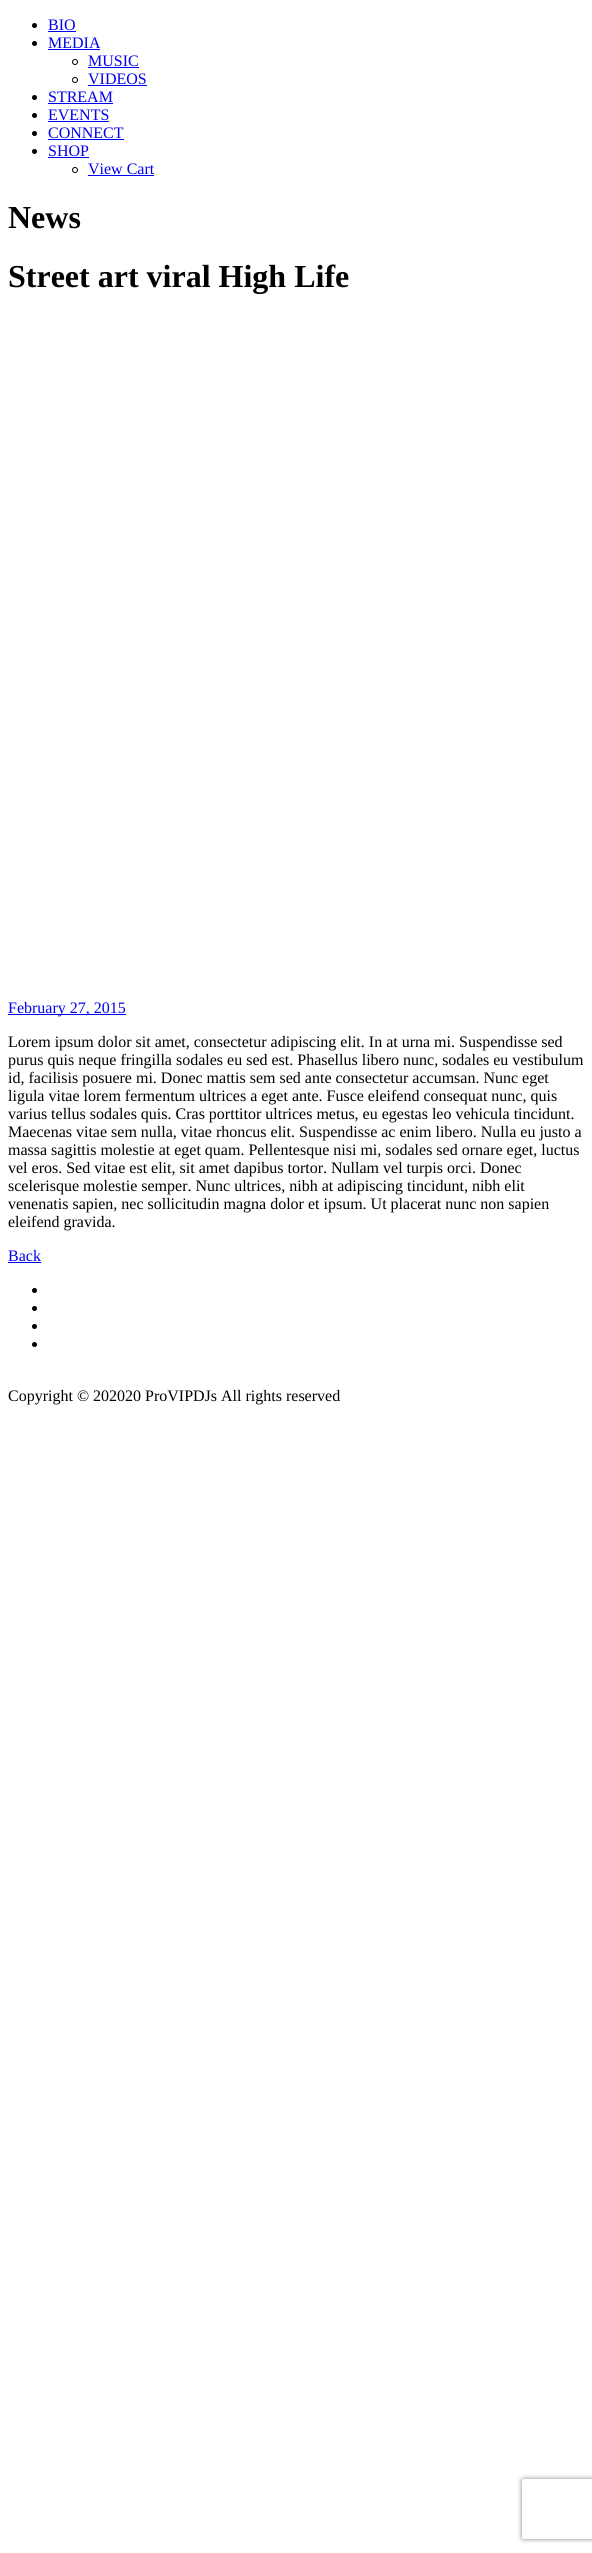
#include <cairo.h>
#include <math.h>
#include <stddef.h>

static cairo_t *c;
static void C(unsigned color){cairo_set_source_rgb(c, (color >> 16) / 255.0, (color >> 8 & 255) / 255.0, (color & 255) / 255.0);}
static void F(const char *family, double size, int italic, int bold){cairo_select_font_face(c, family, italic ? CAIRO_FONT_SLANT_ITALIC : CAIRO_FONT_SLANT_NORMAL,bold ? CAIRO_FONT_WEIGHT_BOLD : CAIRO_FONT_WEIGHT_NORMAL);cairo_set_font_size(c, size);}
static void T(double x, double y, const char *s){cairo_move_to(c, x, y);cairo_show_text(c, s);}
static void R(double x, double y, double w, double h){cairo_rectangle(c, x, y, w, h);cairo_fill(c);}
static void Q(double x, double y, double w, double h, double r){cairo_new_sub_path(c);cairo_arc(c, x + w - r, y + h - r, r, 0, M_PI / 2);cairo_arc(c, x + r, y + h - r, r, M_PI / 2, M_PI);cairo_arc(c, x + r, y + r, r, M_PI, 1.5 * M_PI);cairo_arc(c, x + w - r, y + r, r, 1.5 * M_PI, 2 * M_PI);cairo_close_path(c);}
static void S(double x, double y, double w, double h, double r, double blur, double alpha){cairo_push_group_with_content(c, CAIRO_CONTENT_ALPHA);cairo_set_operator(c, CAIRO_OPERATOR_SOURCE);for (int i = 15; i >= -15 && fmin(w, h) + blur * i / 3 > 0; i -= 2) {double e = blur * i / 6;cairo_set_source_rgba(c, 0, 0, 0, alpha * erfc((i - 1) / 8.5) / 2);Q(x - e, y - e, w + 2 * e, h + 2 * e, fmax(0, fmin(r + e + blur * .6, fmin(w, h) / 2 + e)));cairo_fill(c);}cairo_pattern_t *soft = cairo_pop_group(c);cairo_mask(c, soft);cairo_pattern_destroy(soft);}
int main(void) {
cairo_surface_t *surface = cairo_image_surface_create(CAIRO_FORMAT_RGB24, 592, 2553);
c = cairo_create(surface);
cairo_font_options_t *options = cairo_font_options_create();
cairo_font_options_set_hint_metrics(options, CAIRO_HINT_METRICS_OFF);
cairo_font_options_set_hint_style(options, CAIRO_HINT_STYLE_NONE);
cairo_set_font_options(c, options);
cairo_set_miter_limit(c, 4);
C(0xffffff);
cairo_paint(c);
C(0x000000);
cairo_arc(c,34.5,25.5,2.5,0,2 * M_PI);
cairo_fill(c);
F("Liberation Serif",16,0,0);
C(0x0000ee);
T(48,30,"BIO");
R(48,31,28,1);
C(0x000000);
cairo_new_path(c);
cairo_arc(c,34.5,43.5,2.5,0,2 * M_PI);
cairo_fill(c);
C(0x0000ee);
T(48,48,"MEDIA");
R(48,49,52,1);
cairo_new_path(c);
cairo_arc(c,75,62,2.5,0,2 * M_PI);
C(0x000000);
cairo_set_line_width(c,1);
cairo_stroke(c);
C(0x0000ee);
T(88,66,"MUSIC");
R(88,67,51,1);
cairo_new_path(c);
cairo_arc(c,75,80,2.5,0,2 * M_PI);
C(0x000000);
cairo_stroke(c);
C(0x0000ee);
T(88,84,"VIDEOS");
R(88,85,59,1);
C(0x000000);
cairo_new_path(c);
cairo_arc(c,34.5,97.5,2.5,0,2 * M_PI);
cairo_fill(c);
C(0x0000ee);
T(48,102,"STREAM");
R(48,103,65,1);
C(0x000000);
cairo_new_path(c);
cairo_arc(c,34.5,115.5,2.5,0,2 * M_PI);
cairo_fill(c);
C(0x0000ee);
T(48,120,"EVENTS");
R(48,121,61,1);
C(0x000000);
cairo_new_path(c);
cairo_arc(c,34.5,133.5,2.5,0,2 * M_PI);
cairo_fill(c);
C(0x0000ee);
T(48,138,"CONNECT");
R(48,139,76,1);
C(0x000000);
cairo_new_path(c);
cairo_arc(c,34.5,151.5,2.5,0,2 * M_PI);
cairo_fill(c);
C(0x0000ee);
T(48,156,"SHOP");
R(48,157,41,1);
cairo_new_path(c);
cairo_arc(c,75,170,2.5,0,2 * M_PI);
C(0x000000);
cairo_stroke(c);
C(0x0000ee);
T(88,174,"View Cart");
R(88,175,66,1);
F("Liberation Serif",32,0,1);
C(0x000000);
T(8,228,"News");
T(8,287,"Street art viral High Life");
C(0x0000ee);
R(8,1014,118,1);
F("Liberation Serif",16,0,0);
T(8,1013,"February 27, 2015");
C(0x000000);
T(8,1047,"Lorem ipsum dolor sit amet, consectetur adipiscing elit. In at urna mi. Suspendisse sed");
T(8,1065,"purus quis neque fringilla sodales eu sed est. Phasellus libero nunc, sodales eu vestibulum");
T(8,1083,"id, facilisis posuere mi. Donec mattis sem sed ante consectetur accumsan. Nunc eget");
T(8,1101,"ligula vitae lorem fermentum ultrices a eget ante. Fusce eleifend consequat nunc, quis");
T(8,1119,"varius tellus sodales quis. Cras porttitor ultrices metus, eu egestas leo vehicula tincidunt.");
T(8,1137,"Maecenas vitae sem nulla, vitae rhoncus elit. Suspendisse ac enim libero. Nulla eu justo a");
T(8,1155,"massa sagittis molestie at eget quam. Pellentesque nisi mi, sodales sed ornare eget, luctus");
T(8,1173,"vel eros. Sed vitae est elit, sit amet dapibus tortor. Nullam vel turpis orci. Donec");
T(8,1191,"scelerisque molestie semper. Nunc ultrices, nibh at adipiscing tincidunt, nibh elit");
T(8,1209,"venenatis sapien, nec sollicitudin magna dolor et ipsum. Ut placerat nunc non sapien");
T(8,1227,"eleifend gravida.");
C(0x0000ee);
T(8,1261,"Back");
R(8,1262,33,1);
C(0x000000);
cairo_new_path(c);
cairo_arc(c,34.5,1290.5,2.5,0,2 * M_PI);
cairo_fill(c);
cairo_arc(c,34.5,1308.5,2.5,0,2 * M_PI);
cairo_fill(c);
cairo_arc(c,34.5,1326.5,2.5,0,2 * M_PI);
cairo_fill(c);
cairo_arc(c,34.5,1344.5,2.5,0,2 * M_PI);
cairo_fill(c);
T(8,1401,"Copyright © 202020 ProVIPDJs All rights reserved");
cairo_save(c);
cairo_set_fill_rule(c,CAIRO_FILL_RULE_EVEN_ODD);
cairo_new_path(c);
cairo_move_to(c,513,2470);
cairo_line_to(c,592,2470);
cairo_line_to(c,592,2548);
cairo_line_to(c,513,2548);
cairo_close_path(c);
cairo_move_to(c,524,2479);
cairo_line_to(c,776,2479);
cairo_curve_to(c,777,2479,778,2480,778,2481);
cairo_line_to(c,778,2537);
cairo_curve_to(c,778,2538,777,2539,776,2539);
cairo_line_to(c,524,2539);
cairo_curve_to(c,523,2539,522,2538,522,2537);
cairo_line_to(c,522,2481);
cairo_curve_to(c,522,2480,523,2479,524,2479);
cairo_close_path(c);
cairo_clip(c);
C(0x808080);
S(522,2479,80,60,2,2.5,1);
cairo_restore(c);
cairo_surface_write_to_png(surface, "o.png");
cairo_font_options_destroy(options);
cairo_destroy(c);
cairo_surface_destroy(surface);
return 0;
}
